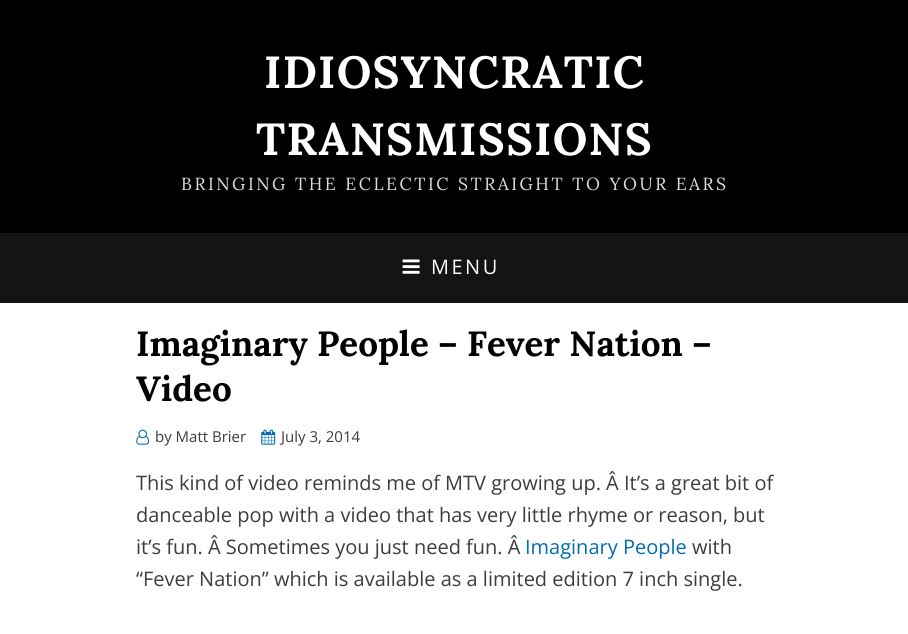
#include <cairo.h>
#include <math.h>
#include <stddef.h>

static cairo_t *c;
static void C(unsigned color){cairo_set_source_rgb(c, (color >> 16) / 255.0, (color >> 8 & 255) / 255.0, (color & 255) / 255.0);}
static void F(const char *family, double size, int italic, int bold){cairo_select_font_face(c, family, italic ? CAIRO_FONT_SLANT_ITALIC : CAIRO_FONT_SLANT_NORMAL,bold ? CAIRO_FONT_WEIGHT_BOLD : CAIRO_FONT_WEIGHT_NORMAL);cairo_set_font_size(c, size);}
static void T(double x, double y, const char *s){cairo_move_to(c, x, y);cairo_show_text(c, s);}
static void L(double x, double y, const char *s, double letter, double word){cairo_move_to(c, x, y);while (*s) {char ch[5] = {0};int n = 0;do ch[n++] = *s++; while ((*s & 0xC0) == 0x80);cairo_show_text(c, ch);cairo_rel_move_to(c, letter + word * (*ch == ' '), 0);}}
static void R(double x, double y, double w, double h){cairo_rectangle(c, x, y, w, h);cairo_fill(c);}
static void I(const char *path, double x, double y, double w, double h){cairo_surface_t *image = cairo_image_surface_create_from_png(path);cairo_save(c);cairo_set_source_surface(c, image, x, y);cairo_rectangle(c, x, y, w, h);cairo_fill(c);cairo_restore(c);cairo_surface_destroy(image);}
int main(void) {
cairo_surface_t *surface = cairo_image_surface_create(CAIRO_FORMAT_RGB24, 908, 634);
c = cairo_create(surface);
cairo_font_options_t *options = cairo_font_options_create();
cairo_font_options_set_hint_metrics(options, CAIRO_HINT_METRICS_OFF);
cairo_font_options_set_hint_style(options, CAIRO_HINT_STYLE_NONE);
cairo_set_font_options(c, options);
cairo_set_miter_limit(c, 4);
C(0xffffff);
cairo_paint(c);
C(0x000000);
R(0,0,908,233);
F("Lora",45,0,1);
C(0xffffff);
L(264,88,"IDIOSYNCRATIC",1.25,0);
L(256,155,"TRANSMISSIONS",1.25,0);
F("Lora",17.5,0,0);
C(0xdddddd);
L(181,190,"BRINGING THE ECLECTIC STRAIGHT TO YOUR EARS",2.5,0);
C(0x141414);
R(0,233,908,70);
I("1.png",402,259,18,15);
F("Open Sans",20,0,0);
C(0xffffff);
L(431,274,"MENU",2.5,0);
F("Lora",35,0,1);
C(0x020202);
T(136,356,"Imaginary People – Fever Nation –");
T(136,401,"Video");
I("2.png",136,429,14,16);
F("Open Sans",15,0,0);
C(0x3d3d3d);
T(155,442,"by Matt Brier");
I("3.png",261,429,15,16);
T(281,442,"July 3, 2014");
F("Open Sans",20,0,0);
T(136,490,"This kind of video reminds me of MTV growing up. Â It’s a great bit of");
T(136,522,"danceable pop with a video that has very little rhyme or reason, but");
T(136,554,"it’s fun. Â Sometimes you just need fun. Â");
C(0x056bb1);
T(525,554,"Imaginary People");
C(0x3d3d3d);
T(692,554,"with");
T(136,586,"“Fever Nation” which is available as a limited edition 7 inch single.");
cairo_surface_write_to_png(surface, "o.png");
cairo_font_options_destroy(options);
cairo_destroy(c);
cairo_surface_destroy(surface);
return 0;
}
